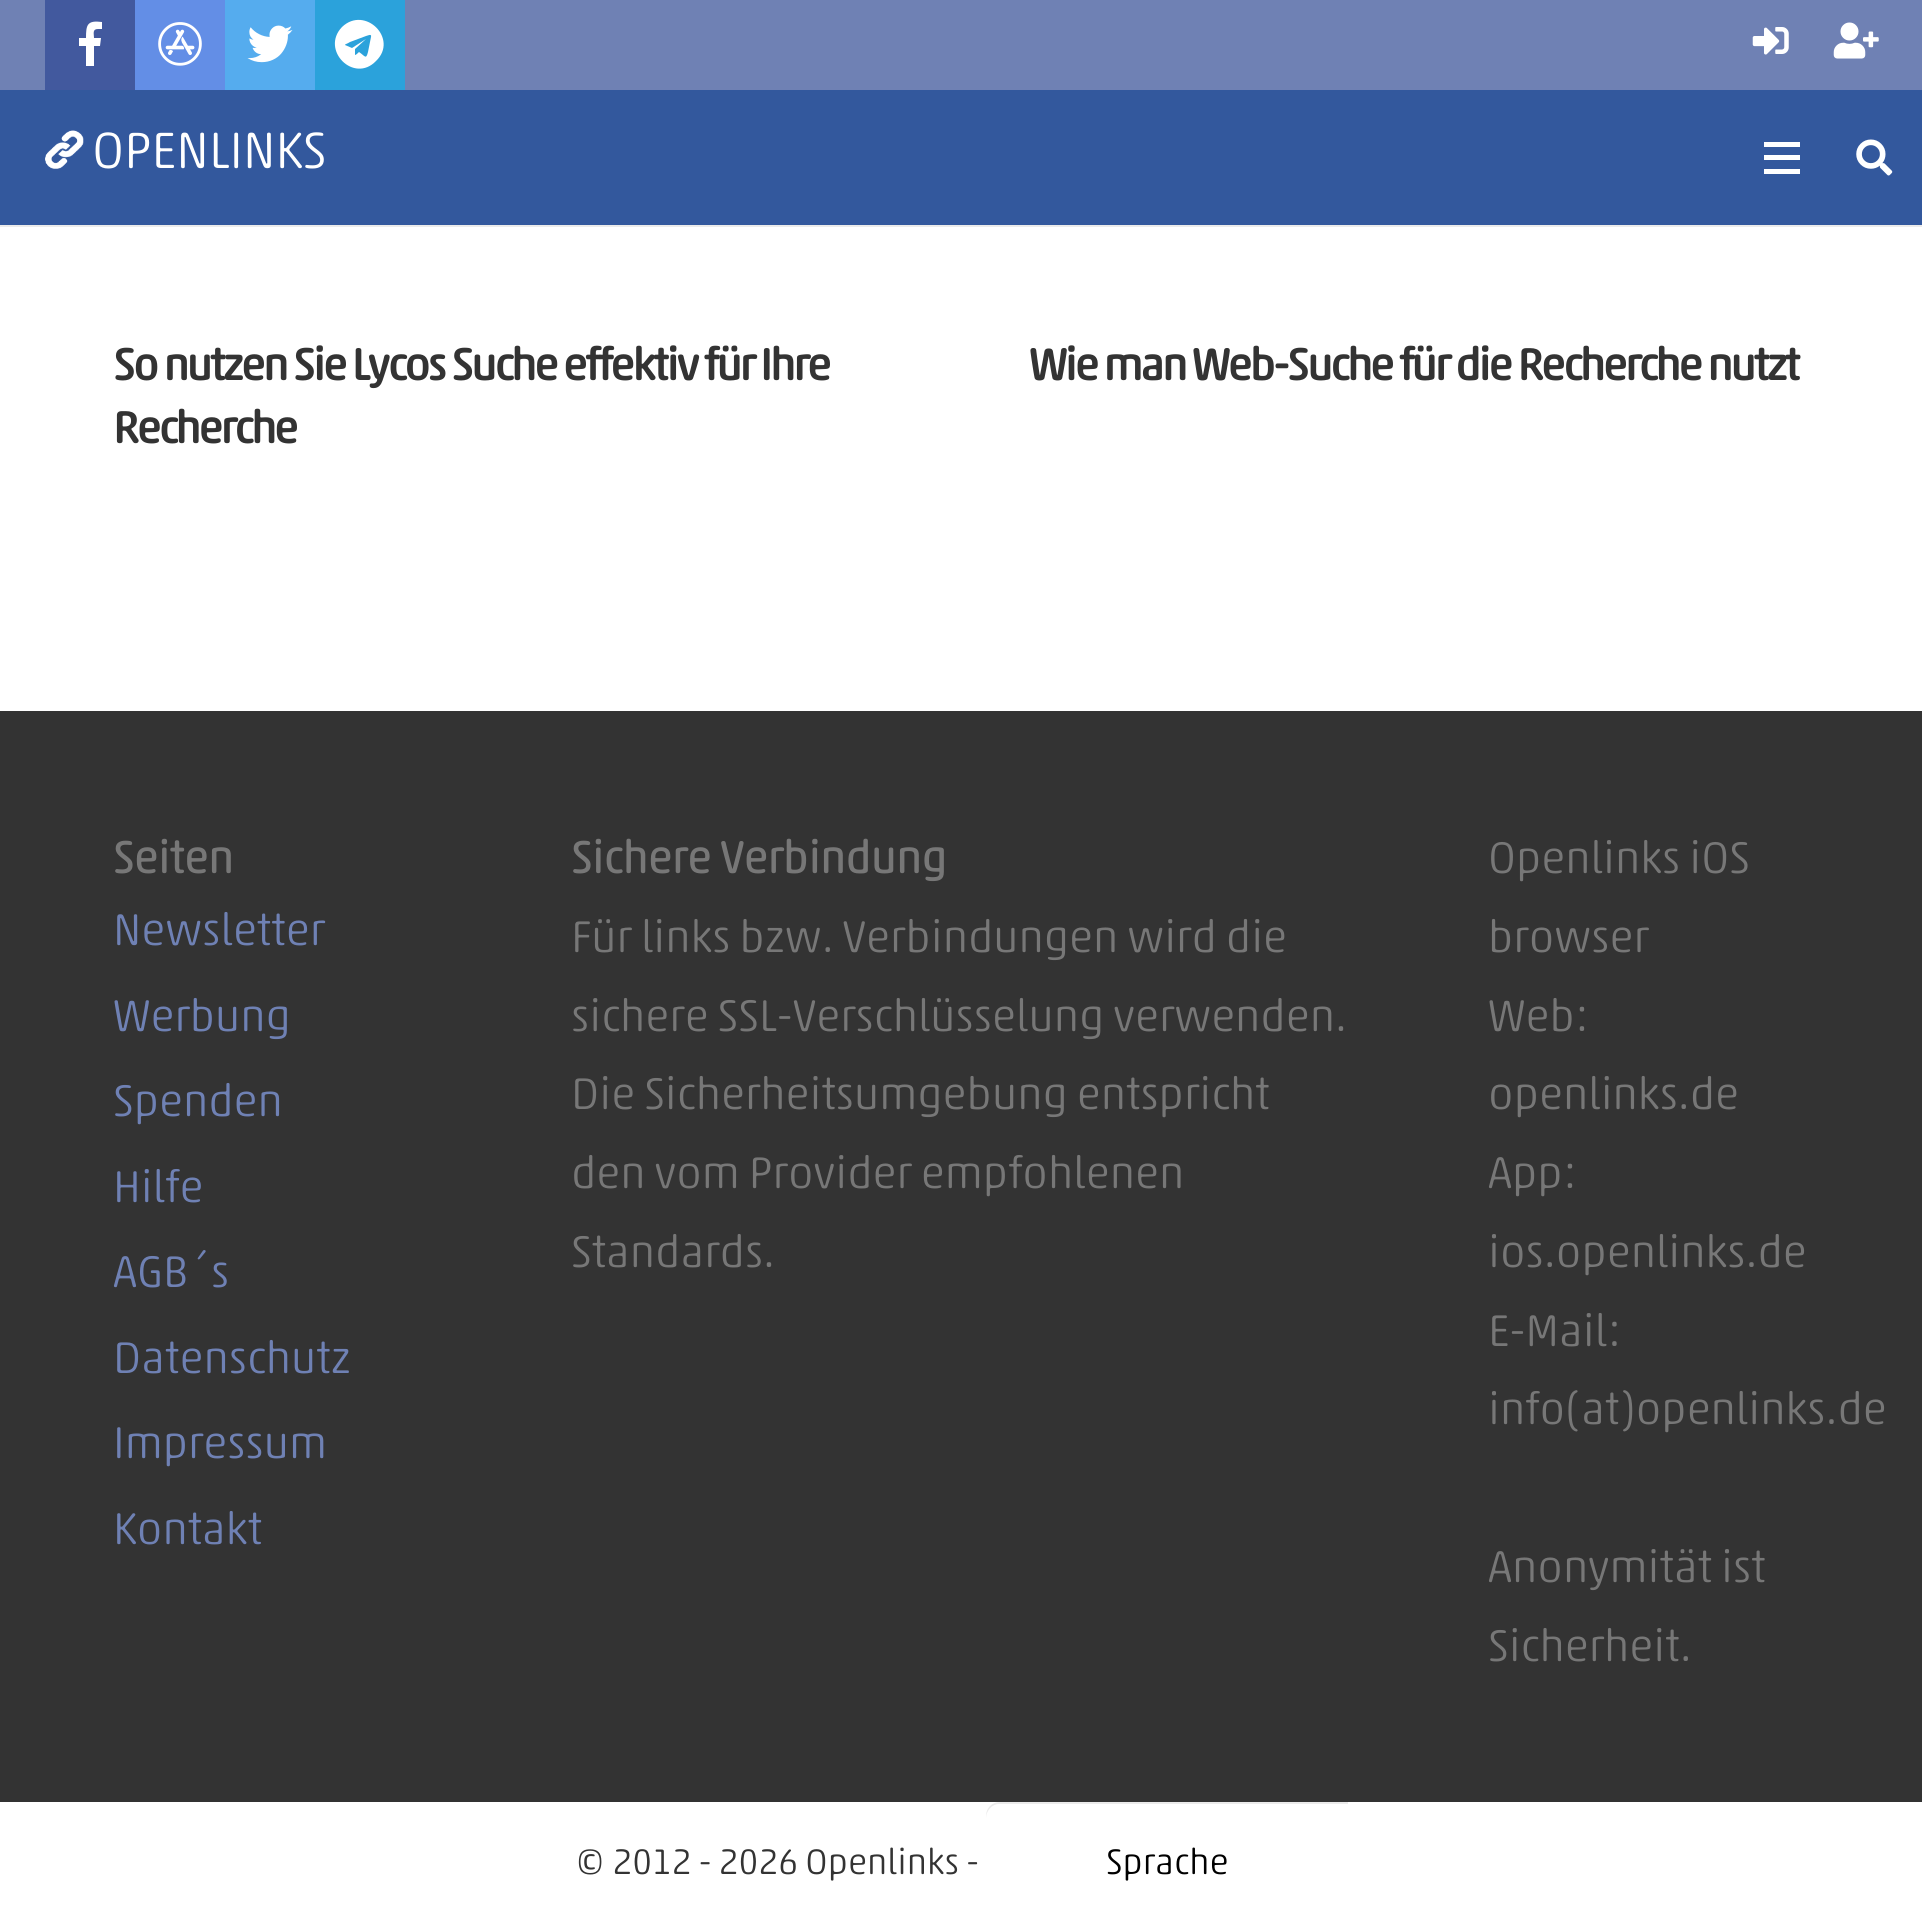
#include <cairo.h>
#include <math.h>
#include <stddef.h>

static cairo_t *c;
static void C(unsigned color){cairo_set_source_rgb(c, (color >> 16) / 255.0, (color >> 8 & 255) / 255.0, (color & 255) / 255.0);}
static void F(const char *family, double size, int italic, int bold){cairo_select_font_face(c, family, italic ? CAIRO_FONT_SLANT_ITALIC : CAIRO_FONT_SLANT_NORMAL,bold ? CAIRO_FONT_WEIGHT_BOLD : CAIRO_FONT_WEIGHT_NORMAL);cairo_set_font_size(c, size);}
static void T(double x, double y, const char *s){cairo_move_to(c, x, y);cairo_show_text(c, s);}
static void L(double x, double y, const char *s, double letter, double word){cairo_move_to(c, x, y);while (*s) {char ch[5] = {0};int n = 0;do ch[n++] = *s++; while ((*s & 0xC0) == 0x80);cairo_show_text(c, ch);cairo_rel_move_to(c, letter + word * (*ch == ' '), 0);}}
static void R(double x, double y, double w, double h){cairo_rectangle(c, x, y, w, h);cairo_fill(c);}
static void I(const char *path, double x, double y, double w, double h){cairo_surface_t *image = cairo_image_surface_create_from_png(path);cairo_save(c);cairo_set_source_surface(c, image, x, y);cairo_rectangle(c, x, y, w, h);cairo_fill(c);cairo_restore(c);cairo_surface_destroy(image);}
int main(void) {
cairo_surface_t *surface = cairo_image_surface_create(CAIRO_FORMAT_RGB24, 1922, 1924);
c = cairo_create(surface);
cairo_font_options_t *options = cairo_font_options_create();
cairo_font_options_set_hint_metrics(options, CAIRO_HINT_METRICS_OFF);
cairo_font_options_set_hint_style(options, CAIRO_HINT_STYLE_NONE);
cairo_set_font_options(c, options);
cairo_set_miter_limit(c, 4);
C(0xffffff);
cairo_paint(c);
C(0x6f81b4);
R(0,0,1922,90);
C(0x42599e);
R(45,0,90,90);
C(0xffffff);
cairo_new_path(c);
cairo_move_to(c,98,29);
cairo_curve_to(c,92,29,94,34,94,38);
cairo_line_to(c,101,38);
cairo_line_to(c,100,46);
cairo_line_to(c,94,46);
cairo_line_to(c,94,66);
cairo_line_to(c,86,66);
cairo_line_to(c,86,46);
cairo_line_to(c,79,46);
cairo_line_to(c,79,38);
cairo_line_to(c,86,38);
cairo_curve_to(c,86,25,87,20,102,22);
cairo_line_to(c,102,29);
cairo_close_path(c);
cairo_fill(c);
C(0x638ee6);
R(135,0,90,90);
I("1.png",158,22,44,44);
C(0x55acee);
R(225,0,90,90);
I("2.png",247,25,46,38);
C(0x2ba2db);
R(315,0,90,90);
C(0xffffff);
cairo_new_path(c);
cairo_move_to(c,342,27);
cairo_curve_to(c,365,5,399,39,376,61);
cairo_curve_to(c,354,84,320,50,342,27);
cairo_close_path(c);
cairo_move_to(c,371,37);
cairo_curve_to(c,372,33,367,36,366,36);
cairo_line_to(c,350,42);
cairo_curve_to(c,347,44,345,44,345,45);
cairo_line_to(c,352,48);
cairo_line_to(c,366,39);
cairo_line_to(c,355,49);
cairo_line_to(c,355,55);
cairo_curve_to(c,356,55,358,53,359,52);
cairo_curve_to(c,365,56,366,60,368,52);
cairo_close_path(c);
cairo_fill(c);
I("3.png",1752,27,37,28);
I("4.png",1833,22,46,37);
C(0xebebeb);
cairo_new_path(c);
cairo_move_to(c,0,225);
cairo_line_to(c,0,227);
cairo_line_to(c,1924,227);
cairo_line_to(c,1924,92);
cairo_line_to(c,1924,225);
cairo_close_path(c);
cairo_fill(c);
C(0x33589d);
R(0,90,1922,135);
I("5.png",45,130,39,39);
F("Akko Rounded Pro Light",51.75,0,0);
C(0xffffff);
T(92,168,"OPENLINKS");
R(1764,155,36,5);
R(1764,142,36,5);
R(1764,169,36,5);
I("6.png",1856,139,37,37);
F("Akko Rounded Pro",45,0,1);
C(0x333333);
L(113,380,"So nutzen Sie Lycos Suche effektiv für Ihre",-2.25,0);
L(113,443,"Recherche",-2.25,0);
L(1029,380,"Wie man Web-Suche für die Recherche nutzt",-2.25,0);
R(0,711,1922,1091);
F("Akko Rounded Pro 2",45,0,1);
C(0x777777);
T(113,873,"Seiten");
F("Akko Rounded Pro Light",45,0,0);
C(0x6f81b4);
T(113,945,"Newsletter");
T(113,1031,"Werbung");
T(113,1116,"Spenden");
T(113,1202,"Hilfe");
T(113,1287,"AGB´s");
T(113,1373,"Datenschutz");
T(113,1458,"Impressum");
T(113,1544,"Kontakt");
F("Akko Rounded Pro 2",45,0,1);
C(0x777777);
T(571,873,"Sichere Verbindung");
F("Akko Rounded Pro Light",45,0,0);
T(571,952,"Für links bzw. Verbindungen wird die");
T(571,1031,"sichere SSL-Verschlüsselung verwenden.");
T(571,1109,"Die Sicherheitsumgebung entspricht");
T(571,1188,"den vom Provider empfohlenen");
T(571,1267,"Standards.");
T(1488,873,"Openlinks iOS");
T(1488,952,"browser");
T(1488,1031,"Web:");
T(1488,1109,"openlinks.de");
T(1488,1188,"App:");
T(1488,1267,"ios.openlinks.de");
T(1488,1346,"E-Mail:");
T(1488,1424,"info(at)openlinks.de");
T(1488,1582,"Anonymität ist");
T(1488,1661,"Sicherheit.");
F("Akko Rounded Pro Light",36,0,0);
C(0x333333);
T(575,1874,"© 2012 - 2026 Openlinks -");
C(0xebebeb);
cairo_new_path(c);
cairo_move_to(c,999,1804);
cairo_line_to(c,1348,1804);
cairo_line_to(c,1348,1802);
cairo_line_to(c,1000,1802);
cairo_curve_to(c,992,1802,986,1808,986,1816);
cairo_line_to(c,986,1818);
cairo_curve_to(c,986,1811,992,1804,999,1804);
cairo_close_path(c);
cairo_fill(c);
C(0x000000);
T(1106,1874,"Sprache");
cairo_surface_write_to_png(surface, "o.png");
cairo_font_options_destroy(options);
cairo_destroy(c);
cairo_surface_destroy(surface);
return 0;
}
